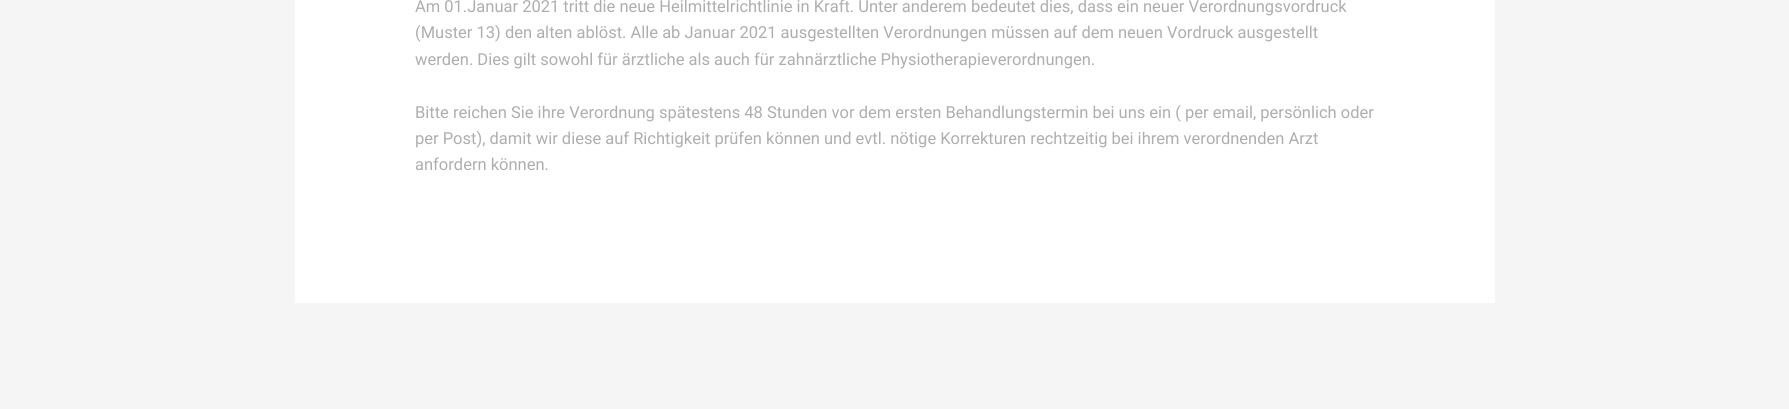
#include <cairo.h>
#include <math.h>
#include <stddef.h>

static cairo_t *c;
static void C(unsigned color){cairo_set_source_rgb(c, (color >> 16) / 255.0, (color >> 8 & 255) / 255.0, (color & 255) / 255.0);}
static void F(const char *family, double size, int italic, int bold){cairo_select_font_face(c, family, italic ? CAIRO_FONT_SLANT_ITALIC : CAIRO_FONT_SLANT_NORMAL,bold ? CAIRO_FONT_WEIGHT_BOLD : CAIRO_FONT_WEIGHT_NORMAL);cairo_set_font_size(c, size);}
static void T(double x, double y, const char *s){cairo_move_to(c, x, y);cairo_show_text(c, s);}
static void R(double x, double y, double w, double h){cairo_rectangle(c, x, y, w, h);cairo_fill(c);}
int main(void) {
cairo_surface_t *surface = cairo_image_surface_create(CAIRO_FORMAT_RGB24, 1789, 409);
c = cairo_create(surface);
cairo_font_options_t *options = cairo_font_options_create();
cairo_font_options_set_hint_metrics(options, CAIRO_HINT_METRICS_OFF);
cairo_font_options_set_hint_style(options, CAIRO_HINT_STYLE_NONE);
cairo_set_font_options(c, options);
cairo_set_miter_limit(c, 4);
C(0xf5f5f5);
cairo_paint(c);
C(0xffffff);
R(295,0,1200,303);
F("Roboto",16.5,0,0);
C(0xadaeae);
T(415,12,"Am 01.Januar 2021 tritt die neue Heilmittelrichtlinie in Kraft. Unter anderem bedeutet dies, dass ein neuer Verordnungsvordruck");
T(415,38,"(Muster 13) den alten ablöst. Alle ab Januar 2021 ausgestellten Verordnungen müssen auf dem neuen Vordruck ausgestellt");
T(415,65,"werden. Dies gilt sowohl für ärztliche als auch für zahnärztliche Physiotherapieverordnungen.");
T(415,118,"Bitte reichen Sie ihre Verordnung spätestens 48 Stunden vor dem ersten Behandlungstermin bei uns ein ( per email, persönlich oder");
T(415,144,"per Post), damit wir diese auf Richtigkeit prüfen können und evtl. nötige Korrekturen rechtzeitig bei ihrem verordnenden Arzt");
T(415,170,"anfordern können.");
cairo_surface_write_to_png(surface, "o.png");
cairo_font_options_destroy(options);
cairo_destroy(c);
cairo_surface_destroy(surface);
return 0;
}
